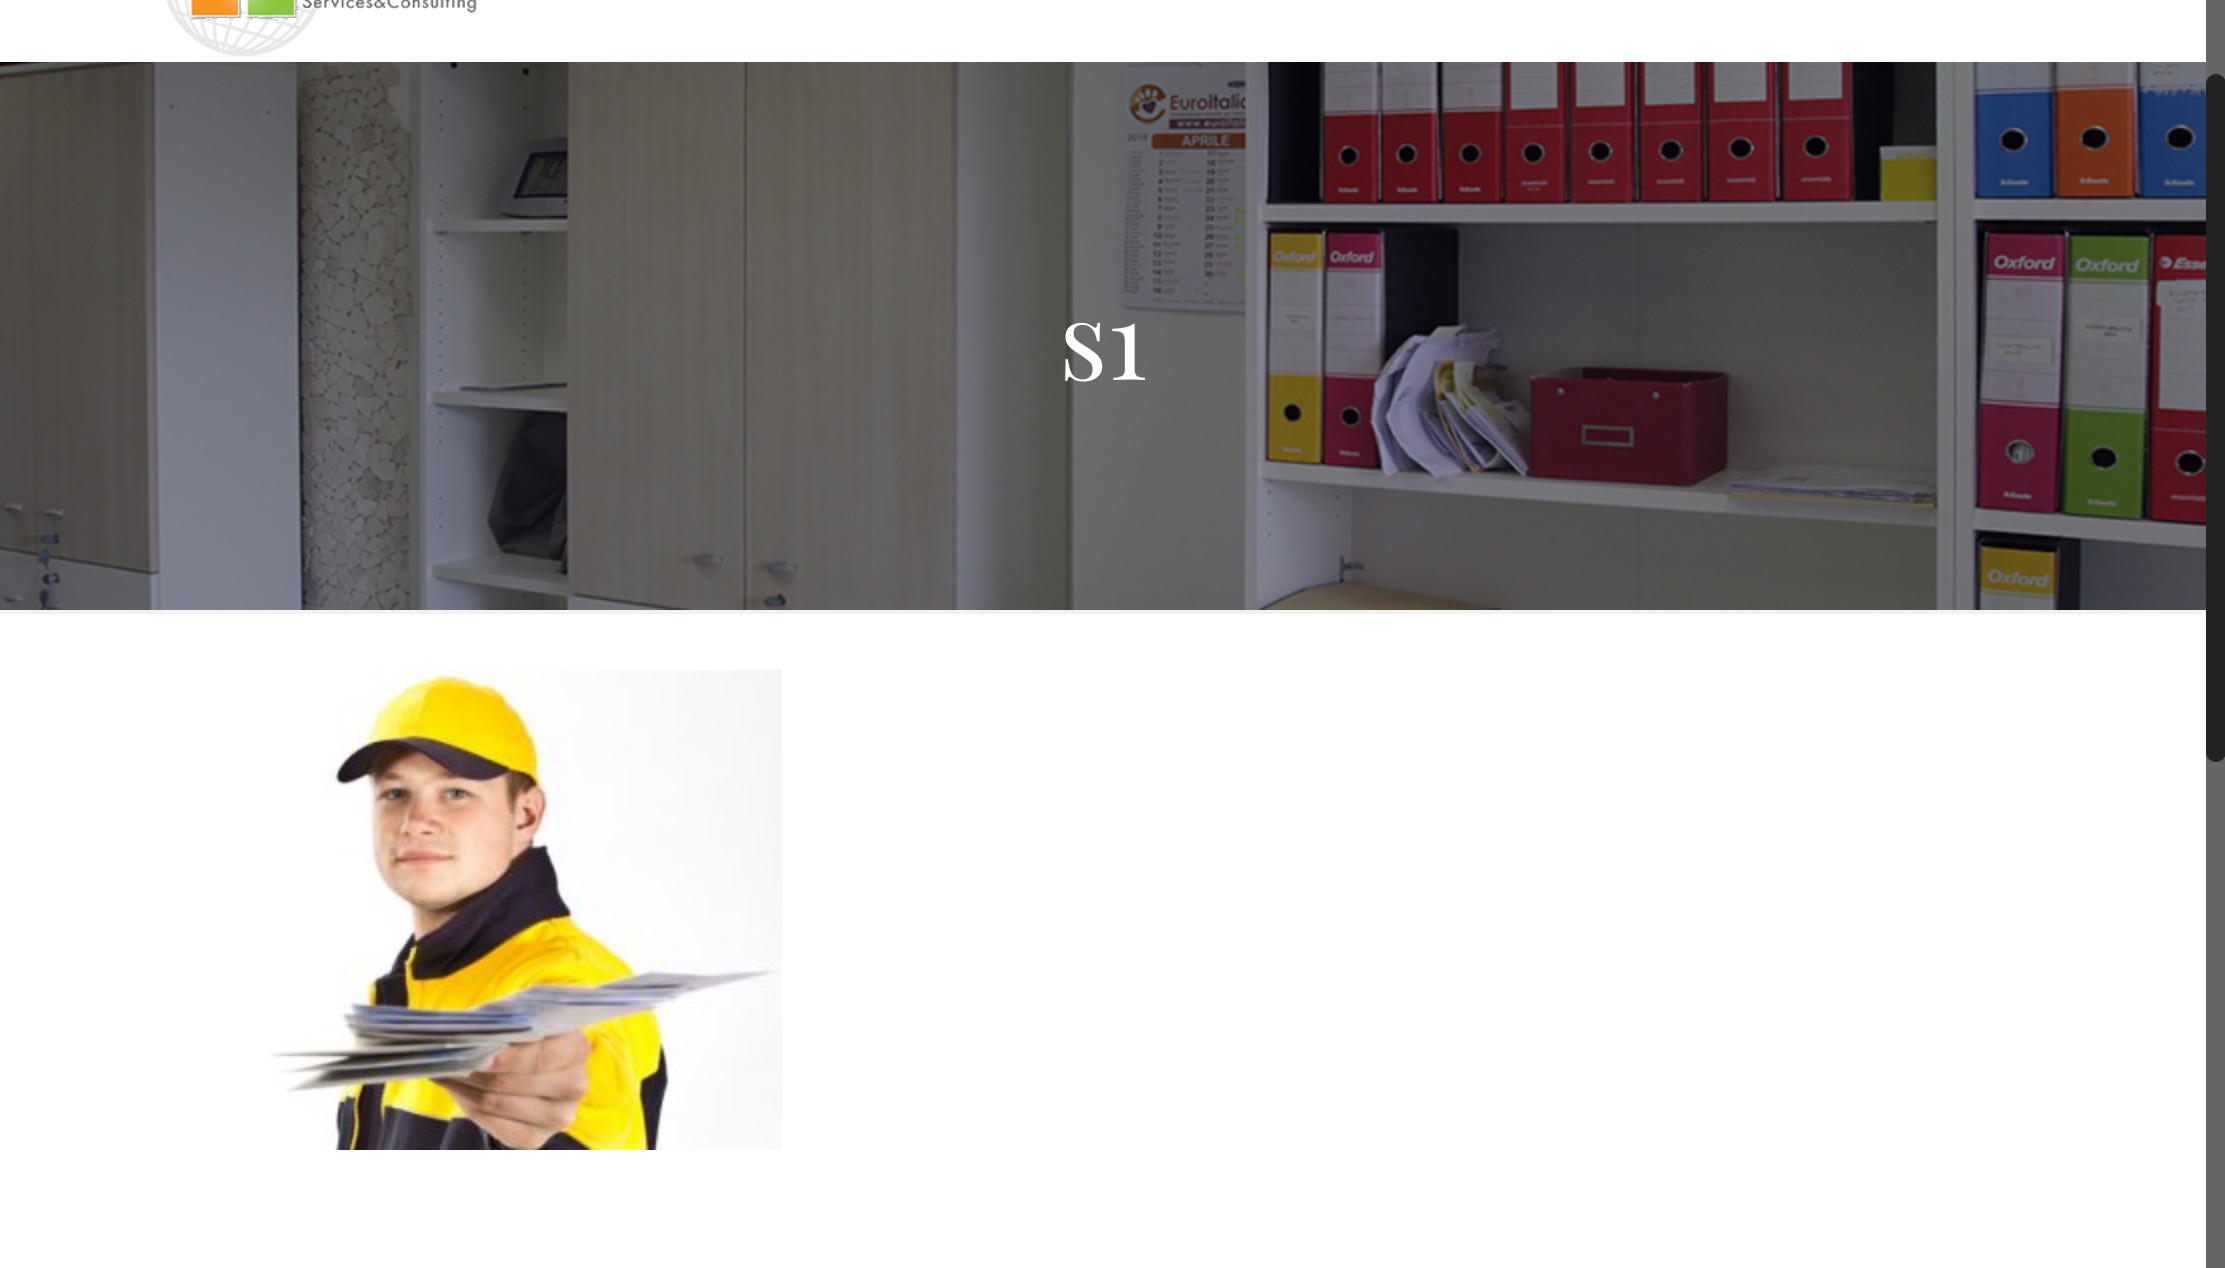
#include <cairo.h>
#include <math.h>
#include <stddef.h>

static cairo_t *c;
static void C(unsigned color){cairo_set_source_rgb(c, (color >> 16) / 255.0, (color >> 8 & 255) / 255.0, (color & 255) / 255.0);}
static void F(const char *family, double size, int italic, int bold){cairo_select_font_face(c, family, italic ? CAIRO_FONT_SLANT_ITALIC : CAIRO_FONT_SLANT_NORMAL,bold ? CAIRO_FONT_WEIGHT_BOLD : CAIRO_FONT_WEIGHT_NORMAL);cairo_set_font_size(c, size);}
static void T(double x, double y, const char *s){cairo_move_to(c, x, y);cairo_show_text(c, s);}
static void R(double x, double y, double w, double h){cairo_rectangle(c, x, y, w, h);cairo_fill(c);}
static void Q(double x, double y, double w, double h, double r){cairo_new_sub_path(c);cairo_arc(c, x + w - r, y + h - r, r, 0, M_PI / 2);cairo_arc(c, x + r, y + h - r, r, M_PI / 2, M_PI);cairo_arc(c, x + r, y + r, r, M_PI, 1.5 * M_PI);cairo_arc(c, x + w - r, y + r, r, 1.5 * M_PI, 2 * M_PI);cairo_close_path(c);}
static void I(const char *path, double x, double y, double w, double h){cairo_surface_t *image = cairo_image_surface_create_from_png(path);cairo_save(c);cairo_set_source_surface(c, image, x, y);cairo_rectangle(c, x, y, w, h);cairo_fill(c);cairo_restore(c);cairo_surface_destroy(image);}
int main(void) {
cairo_surface_t *surface = cairo_image_surface_create(CAIRO_FORMAT_RGB24, 2225, 1268);
c = cairo_create(surface);
cairo_font_options_t *options = cairo_font_options_create();
cairo_font_options_set_hint_metrics(options, CAIRO_HINT_METRICS_OFF);
cairo_font_options_set_hint_style(options, CAIRO_HINT_STYLE_NONE);
cairo_set_font_options(c, options);
cairo_set_miter_limit(c, 4);
C(0xffffff);
cairo_paint(c);
I("1.png",0,62,2206,548);
I("2.png",166,0,311,56);
F("Playfair Display",108,0,0);
C(0xffffff);
T(1059,380,"s1");
C(0xf2f2f2);
R(0,610,2206,4);
I("3.png",270,670,512,480);
C(0x666666);
R(2206,0,19,1268);
C(0x222222);
Q(2206,74,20,688,10);
cairo_fill(c);
cairo_surface_write_to_png(surface, "o.png");
cairo_font_options_destroy(options);
cairo_destroy(c);
cairo_surface_destroy(surface);
return 0;
}
